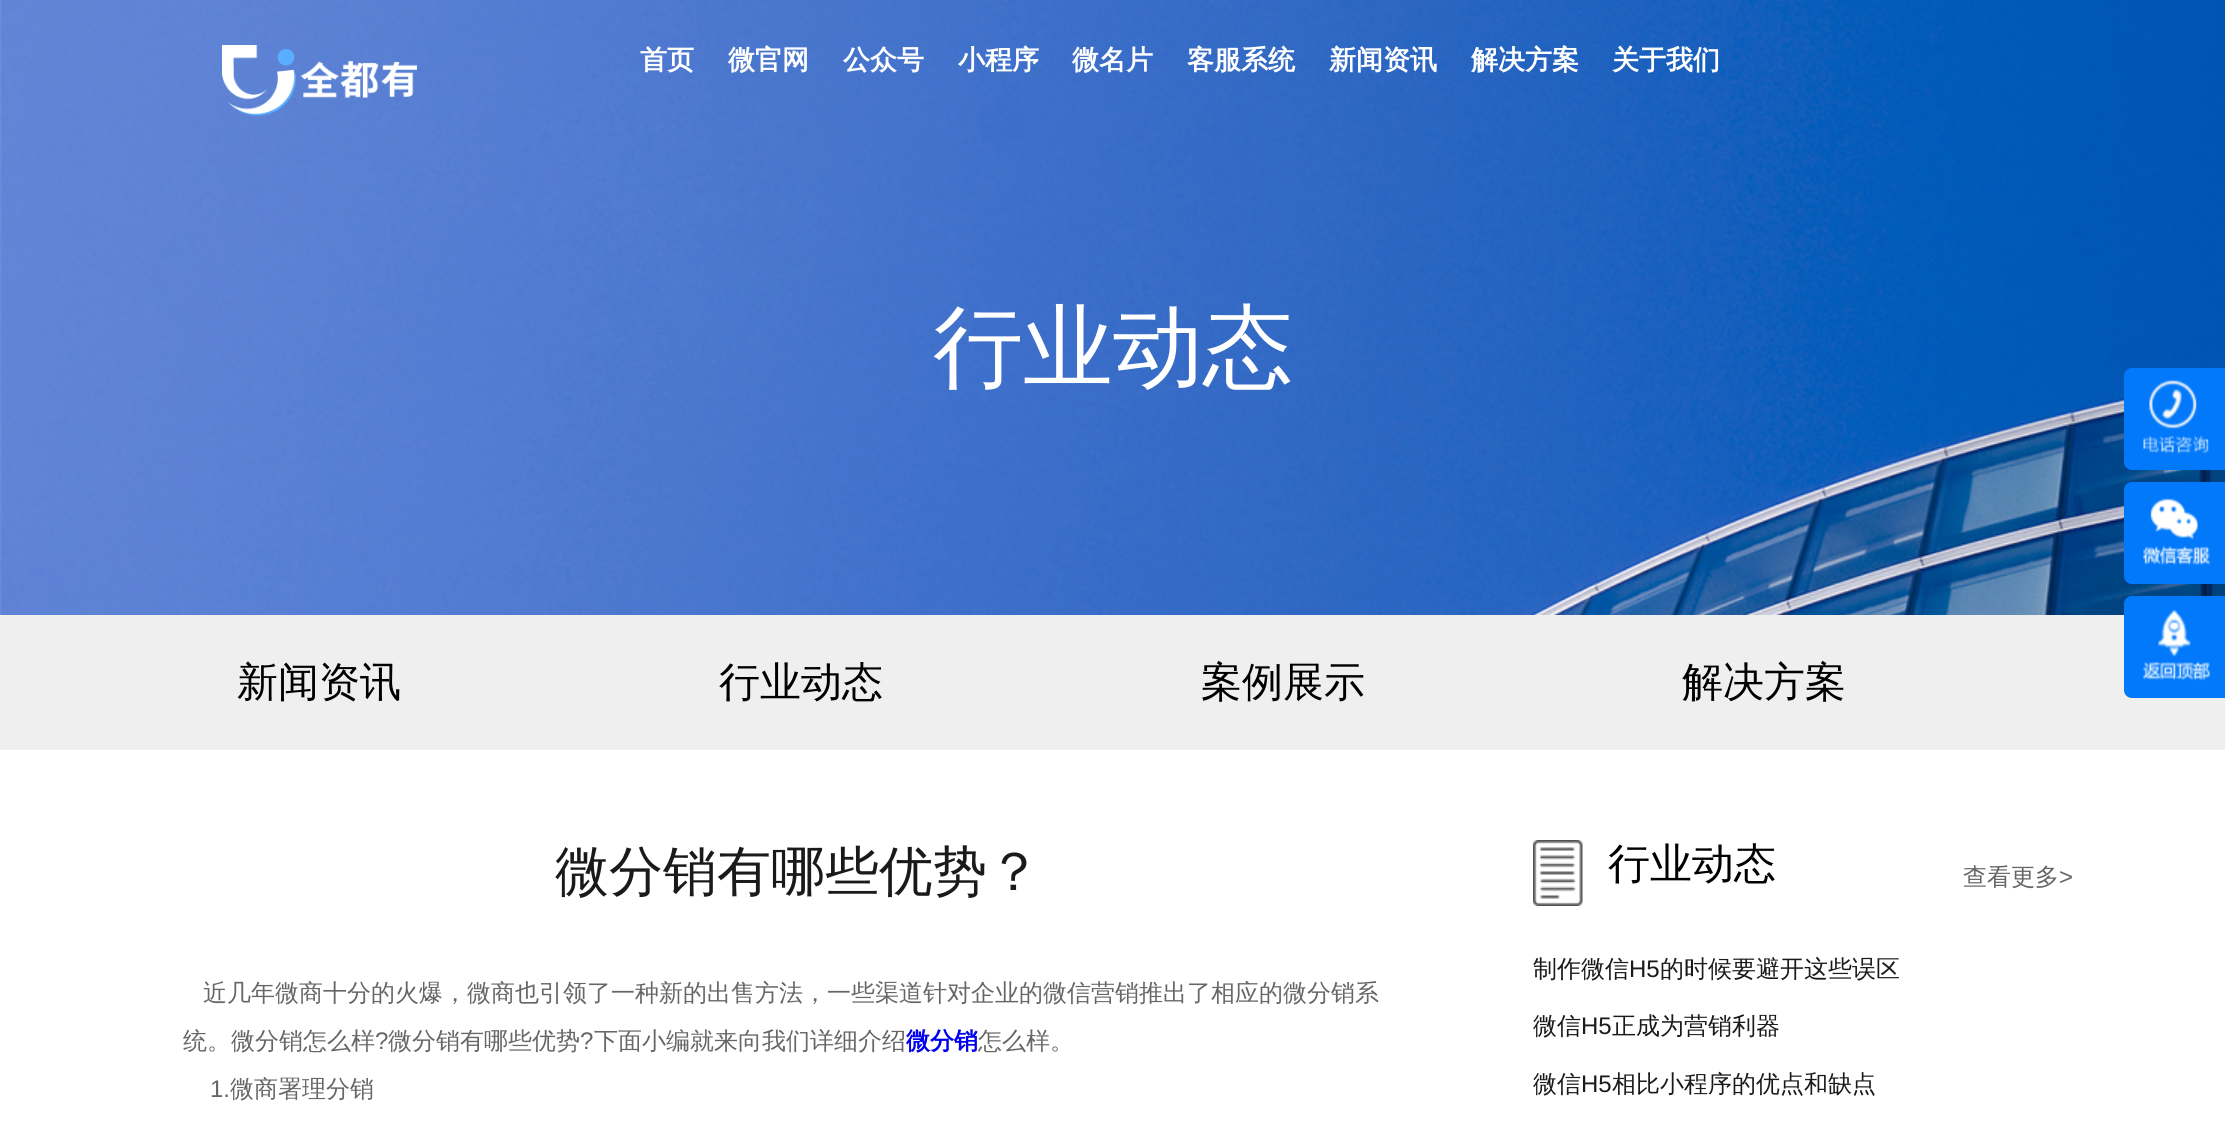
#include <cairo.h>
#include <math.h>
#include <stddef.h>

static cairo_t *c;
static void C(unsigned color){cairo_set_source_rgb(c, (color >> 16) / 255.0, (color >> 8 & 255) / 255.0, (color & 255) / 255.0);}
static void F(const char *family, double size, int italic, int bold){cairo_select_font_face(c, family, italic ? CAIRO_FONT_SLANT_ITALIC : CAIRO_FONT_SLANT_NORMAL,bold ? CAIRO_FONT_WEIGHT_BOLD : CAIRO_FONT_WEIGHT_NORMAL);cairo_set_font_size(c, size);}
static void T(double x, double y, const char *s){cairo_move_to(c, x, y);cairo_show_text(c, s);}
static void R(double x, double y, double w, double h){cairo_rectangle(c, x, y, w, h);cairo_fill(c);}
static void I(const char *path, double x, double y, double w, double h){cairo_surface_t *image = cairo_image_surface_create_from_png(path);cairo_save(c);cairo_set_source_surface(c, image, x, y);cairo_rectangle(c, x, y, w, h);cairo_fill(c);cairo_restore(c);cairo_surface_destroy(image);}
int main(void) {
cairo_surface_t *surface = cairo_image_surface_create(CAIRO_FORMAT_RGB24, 2225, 1130);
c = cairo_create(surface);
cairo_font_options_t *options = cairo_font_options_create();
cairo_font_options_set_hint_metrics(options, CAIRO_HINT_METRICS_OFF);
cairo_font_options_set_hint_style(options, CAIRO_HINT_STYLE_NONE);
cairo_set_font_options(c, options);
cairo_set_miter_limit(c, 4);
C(0xffffff);
cairo_paint(c);
I("2.png",0,0,2225,615);
I("1.png",222,45,195,71);
F("WenQuanYi Zen Hei",27,0,1);
C(0xffffff);
T(640,69,"首页");
T(728,69,"微官网");
T(843,69,"公众号");
T(958,69,"小程序");
T(1072,69,"微名片");
T(1187,69,"客服系统");
T(1329,69,"新闻资讯");
T(1471,69,"解决方案");
T(1612,69,"关于我们");
F("WenQuanYi Zen Hei Medium",90,0,0);
T(933,378,"行业动态");
C(0x0279fb);
cairo_new_path(c);
cairo_move_to(c,2132,368);
cairo_line_to(c,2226,368);
cairo_line_to(c,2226,470);
cairo_line_to(c,2132,470);
cairo_curve_to(c,2127.5,470,2124,466.5,2124,462);
cairo_line_to(c,2124,376);
cairo_curve_to(c,2124,371.5,2127.5,368,2132,368);
cairo_close_path(c);
cairo_fill(c);
I("3.png",2143,380,66,74);
cairo_new_path(c);
cairo_move_to(c,2132,482);
cairo_line_to(c,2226,482);
cairo_line_to(c,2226,584);
cairo_line_to(c,2132,584);
cairo_curve_to(c,2127.5,584,2124,580.5,2124,576);
cairo_line_to(c,2124,490);
cairo_curve_to(c,2124,485.5,2127.5,482,2132,482);
cairo_close_path(c);
cairo_fill(c);
I("4.png",2142,498,68,67);
C(0xefefef);
R(0,615,2225,135);
C(0x0279fb);
cairo_new_path(c);
cairo_move_to(c,2132,596);
cairo_line_to(c,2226,596);
cairo_line_to(c,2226,698);
cairo_line_to(c,2132,698);
cairo_curve_to(c,2127.5,698,2124,694.5,2124,690);
cairo_line_to(c,2124,604);
cairo_curve_to(c,2124,599.5,2127.5,596,2132,596);
cairo_close_path(c);
cairo_fill(c);
I("5.png",2143,609,67,72);
F("WenQuanYi Zen Hei Medium",41,0,0);
C(0x000000);
T(237,696,"新闻资讯");
T(719,696,"行业动态");
T(1201,696,"案例展示");
T(1682,696,"解决方案");
F("WenQuanYi Zen Hei Medium",54,0,0);
C(0x1a1a1a);
T(555,890,"微分销有哪些优势？");
F("WenQuanYi Zen Hei Medium",24,0,0);
C(0x666666);
T(203,1001,"近几年微商十分的火爆，微商也引领了一种新的出售方法，一些渠道针对企业的微信营销推出了相应的微分销系");
T(183,1049,"统。微分销怎么样");
F("Liberation Sans",24,0,0);
T(375,1049,"?");
F("WenQuanYi Zen Hei Medium",24,0,0);
T(388,1049,"微分销有哪些优势");
F("Liberation Sans",24,0,0);
T(580,1049,"?");
F("WenQuanYi Zen Hei Medium",24,0,0);
T(594,1049,"下面小编就来向我们详细介绍");
F("WenQuanYi Zen Hei",24,0,1);
C(0x0000ee);
T(906,1049,"微分销");
F("WenQuanYi Zen Hei Medium",24,0,0);
C(0x666666);
T(978,1049,"怎么样。");
F("Liberation Sans",24,0,0);
T(210,1097,"1.");
F("WenQuanYi Zen Hei Medium",24,0,0);
T(230,1097,"微商署理分销");
I("6.png",1533,840,50,66);
F("WenQuanYi Zen Hei Medium",42,0,0);
C(0x000000);
T(1608,878,"行业动态");
F("WenQuanYi Zen Hei Medium",24,0,0);
C(0x666666);
T(1963,885,"查看更多");
F("Liberation Sans",24,0,0);
T(2059,885,">");
F("WenQuanYi Zen Hei Medium",24,0,0);
C(0x1a1a1a);
T(1533,977,"制作微信");
F("Liberation Sans",24,0,0);
T(1629,977,"H5");
F("WenQuanYi Zen Hei Medium",24,0,0);
T(1660,977,"的时候要避开这些误区");
T(1533,1034,"微信");
F("Liberation Sans",24,0,0);
T(1581,1034,"H5");
F("WenQuanYi Zen Hei Medium",24,0,0);
T(1612,1034,"正成为营销利器");
T(1533,1092,"微信");
F("Liberation Sans",24,0,0);
T(1581,1092,"H5");
F("WenQuanYi Zen Hei Medium",24,0,0);
T(1612,1092,"相比小程序的优点和缺点");
cairo_surface_write_to_png(surface, "o.png");
cairo_font_options_destroy(options);
cairo_destroy(c);
cairo_surface_destroy(surface);
return 0;
}
